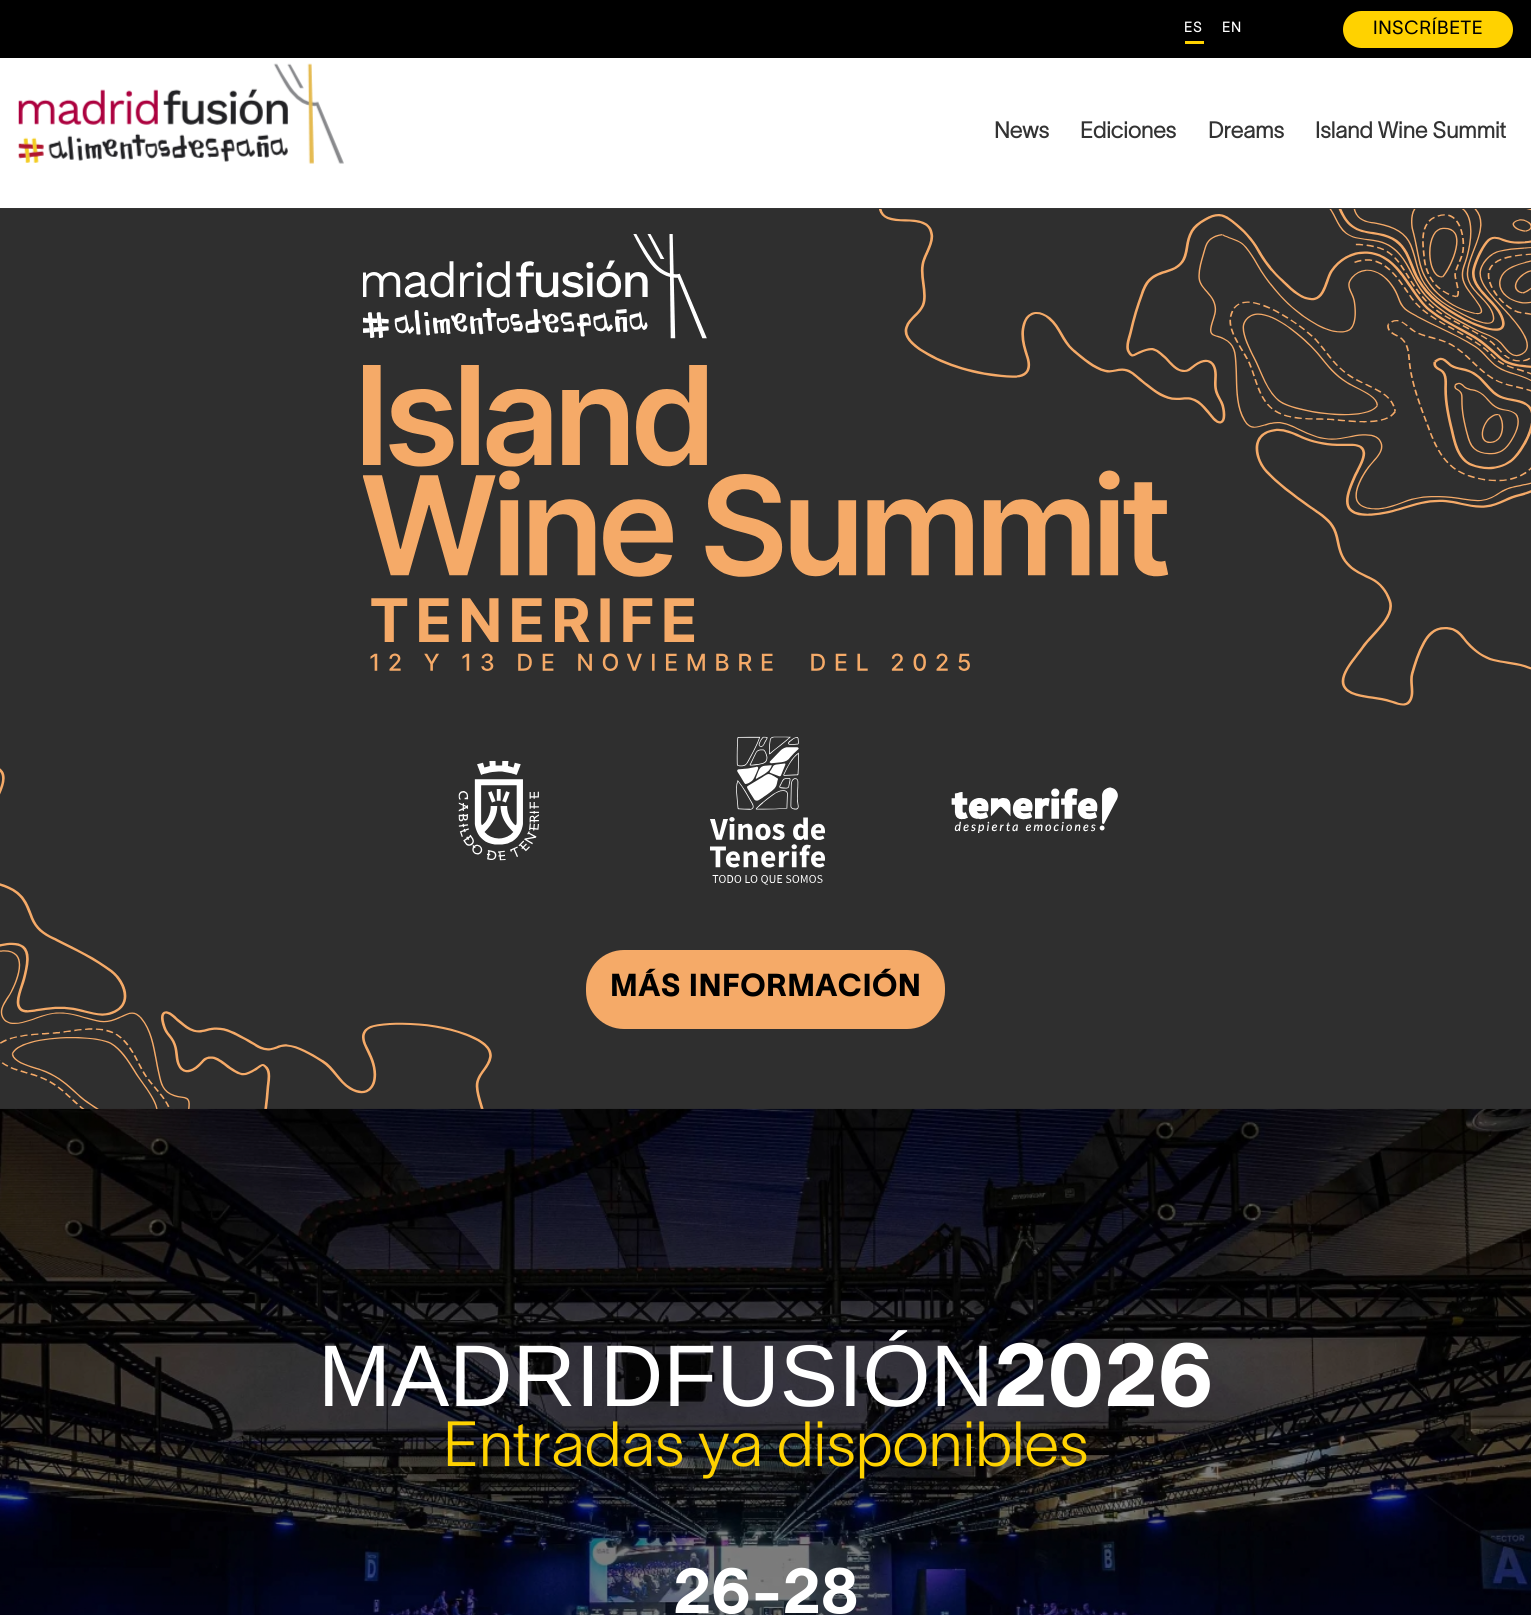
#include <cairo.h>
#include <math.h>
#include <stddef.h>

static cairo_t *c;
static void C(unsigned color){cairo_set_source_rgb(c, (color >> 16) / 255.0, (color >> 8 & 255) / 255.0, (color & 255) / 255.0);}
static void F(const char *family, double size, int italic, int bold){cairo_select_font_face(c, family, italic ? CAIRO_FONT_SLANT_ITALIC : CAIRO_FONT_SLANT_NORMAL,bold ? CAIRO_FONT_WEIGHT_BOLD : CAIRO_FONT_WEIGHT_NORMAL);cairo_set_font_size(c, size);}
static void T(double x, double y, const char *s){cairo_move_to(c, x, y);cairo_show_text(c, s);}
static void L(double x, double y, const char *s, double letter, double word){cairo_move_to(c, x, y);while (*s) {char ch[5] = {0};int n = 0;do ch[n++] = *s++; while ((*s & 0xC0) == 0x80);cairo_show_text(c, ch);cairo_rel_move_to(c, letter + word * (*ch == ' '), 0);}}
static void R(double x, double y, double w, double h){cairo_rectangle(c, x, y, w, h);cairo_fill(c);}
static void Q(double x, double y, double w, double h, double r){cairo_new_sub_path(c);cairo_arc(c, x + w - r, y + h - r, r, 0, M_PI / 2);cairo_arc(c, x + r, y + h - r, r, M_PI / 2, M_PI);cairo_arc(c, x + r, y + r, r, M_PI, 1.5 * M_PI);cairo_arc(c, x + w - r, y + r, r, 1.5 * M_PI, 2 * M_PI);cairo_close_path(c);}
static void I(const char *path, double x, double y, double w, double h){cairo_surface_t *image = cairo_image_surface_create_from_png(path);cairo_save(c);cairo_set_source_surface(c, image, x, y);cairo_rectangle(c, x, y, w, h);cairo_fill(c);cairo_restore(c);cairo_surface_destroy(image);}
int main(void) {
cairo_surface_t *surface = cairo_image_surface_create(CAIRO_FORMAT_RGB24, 1531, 1615);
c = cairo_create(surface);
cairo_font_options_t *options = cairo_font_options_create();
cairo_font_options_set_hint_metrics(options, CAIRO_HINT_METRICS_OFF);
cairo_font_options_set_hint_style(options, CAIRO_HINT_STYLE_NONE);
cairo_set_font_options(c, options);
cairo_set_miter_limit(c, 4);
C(0xffffff);
cairo_paint(c);
C(0x333333);
R(0,208,1531,1);
C(0x000000);
R(0,0,1531,58);
F("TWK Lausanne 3",14,0,1);
C(0xffffff);
L(1184,32,"ES",1,0);
C(0xffd200);
R(1185,41,19,3);
C(0xffffff);
L(1222,32,"EN",1,0);
C(0xffd200);
Q(1343,11,170,37,18.5);
cairo_fill(c);
F("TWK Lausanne",18.75,0,0);
C(0x000000);
L(1373,34,"INSCRÍBETE",.5,0);
I("1.png",18,63,326,101);
F("TWK Lausanne 3",22.5,0,1);
C(0x333333);
T(994,138,"News");
T(1080,138,"Ediciones");
T(1208,138,"Dreams");
T(1315,138,"Island Wine Summit");
C(0x2f2f2f);
R(0,209,1531,900);
I("6.png",458,736,660,149);
I("2.png",0,768,492,341);
I("5.png",363,365,806,306);
I("3.png",879,209,652,497);
I("4.png",363,234,344,105);
C(0xf5aa68);
Q(586,950,359,79,38);
cairo_fill(c);
F("TWK Lausanne",30,0,1);
C(0x000000);
L(610,996,"MÁS INFORMACIÓN",1.25,0);
I("7.png",0,1108,1531,507);
F("Liberation Sans",87.5,0,0);
C(0xffffff);
T(318,1406,"MADRIDFUSIÓN");
F("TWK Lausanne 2",87.5,0,1);
T(994,1406,"2026");
F("TWK Lausanne Light",62.5,0,0);
C(0xffd200);
T(443,1466,"Entradas ya disponibles");
F("TWK Lausanne 2",62.5,0,1);
C(0xffffff);
T(673,1613,"26-28");
cairo_surface_write_to_png(surface, "o.png");
cairo_font_options_destroy(options);
cairo_destroy(c);
cairo_surface_destroy(surface);
return 0;
}
